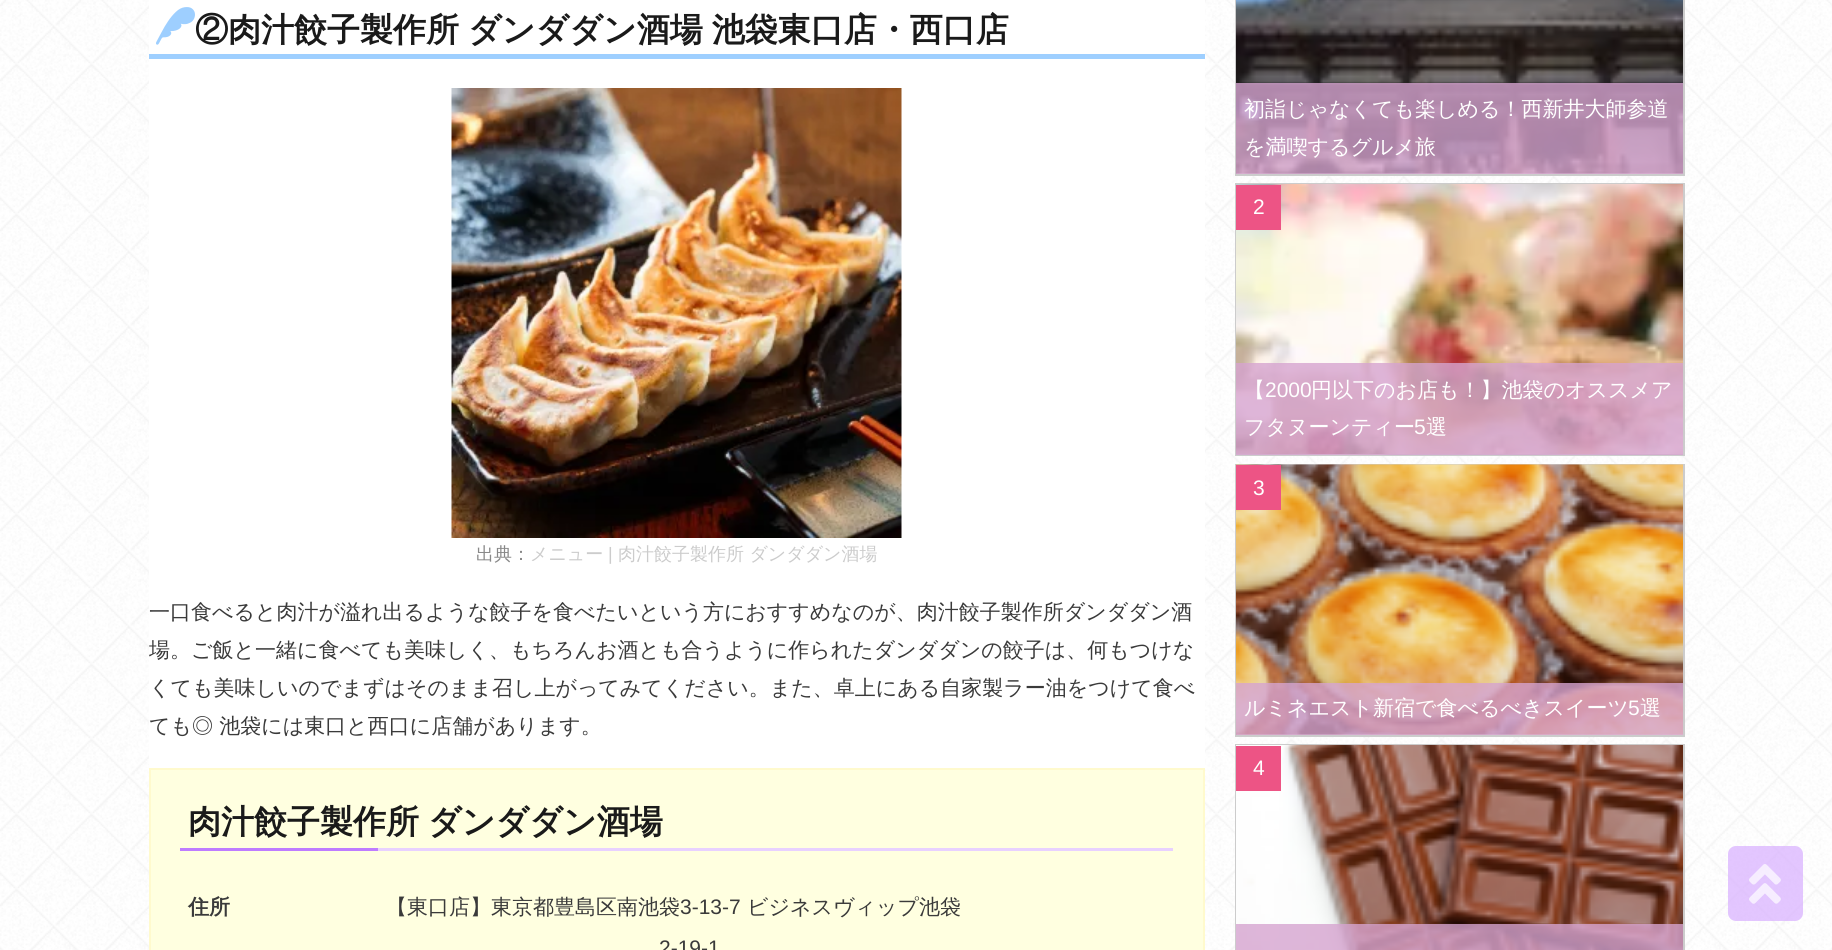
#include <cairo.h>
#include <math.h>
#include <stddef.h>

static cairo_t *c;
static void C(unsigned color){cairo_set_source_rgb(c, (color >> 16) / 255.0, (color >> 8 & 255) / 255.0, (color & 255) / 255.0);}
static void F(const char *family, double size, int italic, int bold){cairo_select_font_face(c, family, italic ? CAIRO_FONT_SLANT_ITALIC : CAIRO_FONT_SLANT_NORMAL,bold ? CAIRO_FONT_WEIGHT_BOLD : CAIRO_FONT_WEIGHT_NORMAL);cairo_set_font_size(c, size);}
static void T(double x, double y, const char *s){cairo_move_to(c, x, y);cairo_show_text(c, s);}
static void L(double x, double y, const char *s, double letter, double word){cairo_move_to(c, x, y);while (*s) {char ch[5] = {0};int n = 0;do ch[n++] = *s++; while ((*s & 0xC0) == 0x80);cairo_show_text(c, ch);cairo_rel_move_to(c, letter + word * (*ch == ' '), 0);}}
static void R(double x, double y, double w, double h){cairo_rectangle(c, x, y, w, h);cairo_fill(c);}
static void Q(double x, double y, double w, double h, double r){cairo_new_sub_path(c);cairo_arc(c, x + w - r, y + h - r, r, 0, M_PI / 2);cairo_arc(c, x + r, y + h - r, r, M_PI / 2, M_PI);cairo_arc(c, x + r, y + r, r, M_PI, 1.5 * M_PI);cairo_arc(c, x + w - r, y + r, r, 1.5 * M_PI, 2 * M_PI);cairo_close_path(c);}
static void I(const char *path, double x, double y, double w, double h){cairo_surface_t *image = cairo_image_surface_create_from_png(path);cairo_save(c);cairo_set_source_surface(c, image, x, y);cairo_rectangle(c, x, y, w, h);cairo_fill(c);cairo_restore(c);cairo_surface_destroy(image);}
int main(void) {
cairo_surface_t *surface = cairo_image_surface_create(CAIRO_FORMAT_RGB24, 1832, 950);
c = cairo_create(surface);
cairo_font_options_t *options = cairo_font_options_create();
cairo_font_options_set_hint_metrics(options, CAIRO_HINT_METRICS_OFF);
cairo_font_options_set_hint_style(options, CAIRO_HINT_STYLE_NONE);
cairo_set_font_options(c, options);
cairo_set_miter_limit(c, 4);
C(0xffffff);
cairo_paint(c);
I("1.png",0,0,1832,950);
C(0xffffff);
R(149,0,1056,768);
C(0x9ecfff);
R(149,54,1056,5);
I("2.png",156,7,39,38);
F("WenQuanYi Zen Hei",33,0,1);
C(0x1a1a1a);
L(195,41,"②肉汁餃子製作所 ダンダダン酒場 池袋東口店・西口店",0,-1);
I("3.png",451,88,451,450);
F("WenQuanYi Zen Hei Medium",18,0,0);
C(0x888888);
T(476,560,"出典：");
C(0xcccccc);
T(530,560,"メニュー");
F("Liberation Sans",18,0,0);
T(608,560,"|");
F("WenQuanYi Zen Hei Medium",18,0,0);
T(618,560,"肉汁餃子製作所 ダンダダン酒場");
F("WenQuanYi Zen Hei Medium",21,0,0);
C(0x3a3a3a);
T(149,619,"一口食べると肉汁が溢れ出るような餃子を食べたいという方におすすめなのが、肉汁餃子製作所ダンダダン酒");
T(149,657,"場。ご飯と一緒に食べても美味しく、もちろんお酒とも合うように作られたダンダダンの餃子は、何もつけな");
T(149,695,"くても美味しいのでまずはそのまま召し上がってみてください。また、卓上にある自家製ラー油をつけて食べ");
T(149,733,"ても◎ 池袋には東口と西口に店舗があります。");
C(0xffffe0);
cairo_rectangle(c,150,769,1054,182);
cairo_fill_preserve(c);
C(0xfffacd);
cairo_stroke(c);
C(0xe8d1ff);
R(378,848,795,3);
F("WenQuanYi Zen Hei",33,0,1);
C(0x1a1a1a);
L(188,833,"肉汁餃子製作所 ダンダダン酒場",0,-1);
C(0xbe7cff);
R(180,848,198,3);
F("WenQuanYi Zen Hei",21,0,1);
C(0x3a3a3a);
T(188,914,"住所");
F("WenQuanYi Zen Hei Medium",21,0,0);
T(386,914,"【東口店】東京都豊島区南池袋");
F("Liberation Sans",21,0,0);
T(680,914,"3-13-7");
F("WenQuanYi Zen Hei Medium",21,0,0);
T(747,914,"ビジネスヴィップ池袋");
F("Liberation Sans",21,0,0);
T(659,955,"2-19-1");
cairo_rectangle(c,1236,-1,448,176);
C(0xcccccc);
cairo_stroke(c);
I("4.png",1236,0,447,174);
cairo_set_source_rgba(c,0.835,0.643,0.812,0.8);
R(1236,83,447,91);
F("WenQuanYi Zen Hei Medium",21,0,0);
C(0xffffff);
T(1244,116,"初詣じゃなくても楽しめる！西新井大師参道");
T(1244,154,"を満喫するグルメ旅");
cairo_rectangle(c,1236,184,448,271);
C(0xcccccc);
cairo_stroke(c);
I("5.png",1236,184,447,270);
C(0xed5485);
R(1236,185,45,45);
F("Liberation Sans",21,0,0);
C(0xffffff);
T(1253,214,"2");
cairo_set_source_rgba(c,0.835,0.643,0.812,0.8);
R(1236,363,447,92);
F("WenQuanYi Zen Hei Medium",21,0,0);
C(0xffffff);
T(1244,397,"【");
F("Liberation Sans",21,0,0);
T(1265,397,"2000");
F("WenQuanYi Zen Hei Medium",21,0,0);
T(1311,397,"円以下のお店も！】池袋のオススメア");
T(1244,434,"フタヌーンティー");
F("Liberation Sans",21,0,0);
T(1414,434,"5");
F("WenQuanYi Zen Hei Medium",21,0,0);
T(1426,434,"選");
cairo_rectangle(c,1236,465,448,271);
C(0xcccccc);
cairo_stroke(c);
I("6.png",1236,464,447,271);
C(0xed5485);
R(1236,465,45,45);
F("Liberation Sans",21,0,0);
C(0xffffff);
T(1253,495,"3");
cairo_set_source_rgba(c,0.835,0.643,0.812,0.8);
R(1236,683,447,52);
F("WenQuanYi Zen Hei Medium",21,0,0);
C(0xffffff);
T(1244,715,"ルミネエスト新宿で食べるべきスイーツ");
F("Liberation Sans",21,0,0);
T(1628,715,"5");
F("WenQuanYi Zen Hei Medium",21,0,0);
T(1640,715,"選");
cairo_rectangle(c,1236,745,448,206);
C(0xcccccc);
cairo_stroke(c);
I("7.png",1236,745,447,205);
cairo_set_source_rgba(c,0.835,0.643,0.812,0.8);
R(1236,924,447,26);
C(0xed5485);
R(1236,746,45,45);
F("Liberation Sans",21,0,0);
C(0xffffff);
T(1253,775,"4");
cairo_set_source_rgba(c,0.843,0.686,1,0.7);
Q(1728,846,75,75,8);
cairo_fill(c);
I("8.png",1749,864,32,40);
cairo_surface_write_to_png(surface, "o.png");
cairo_font_options_destroy(options);
cairo_destroy(c);
cairo_surface_destroy(surface);
return 0;
}
